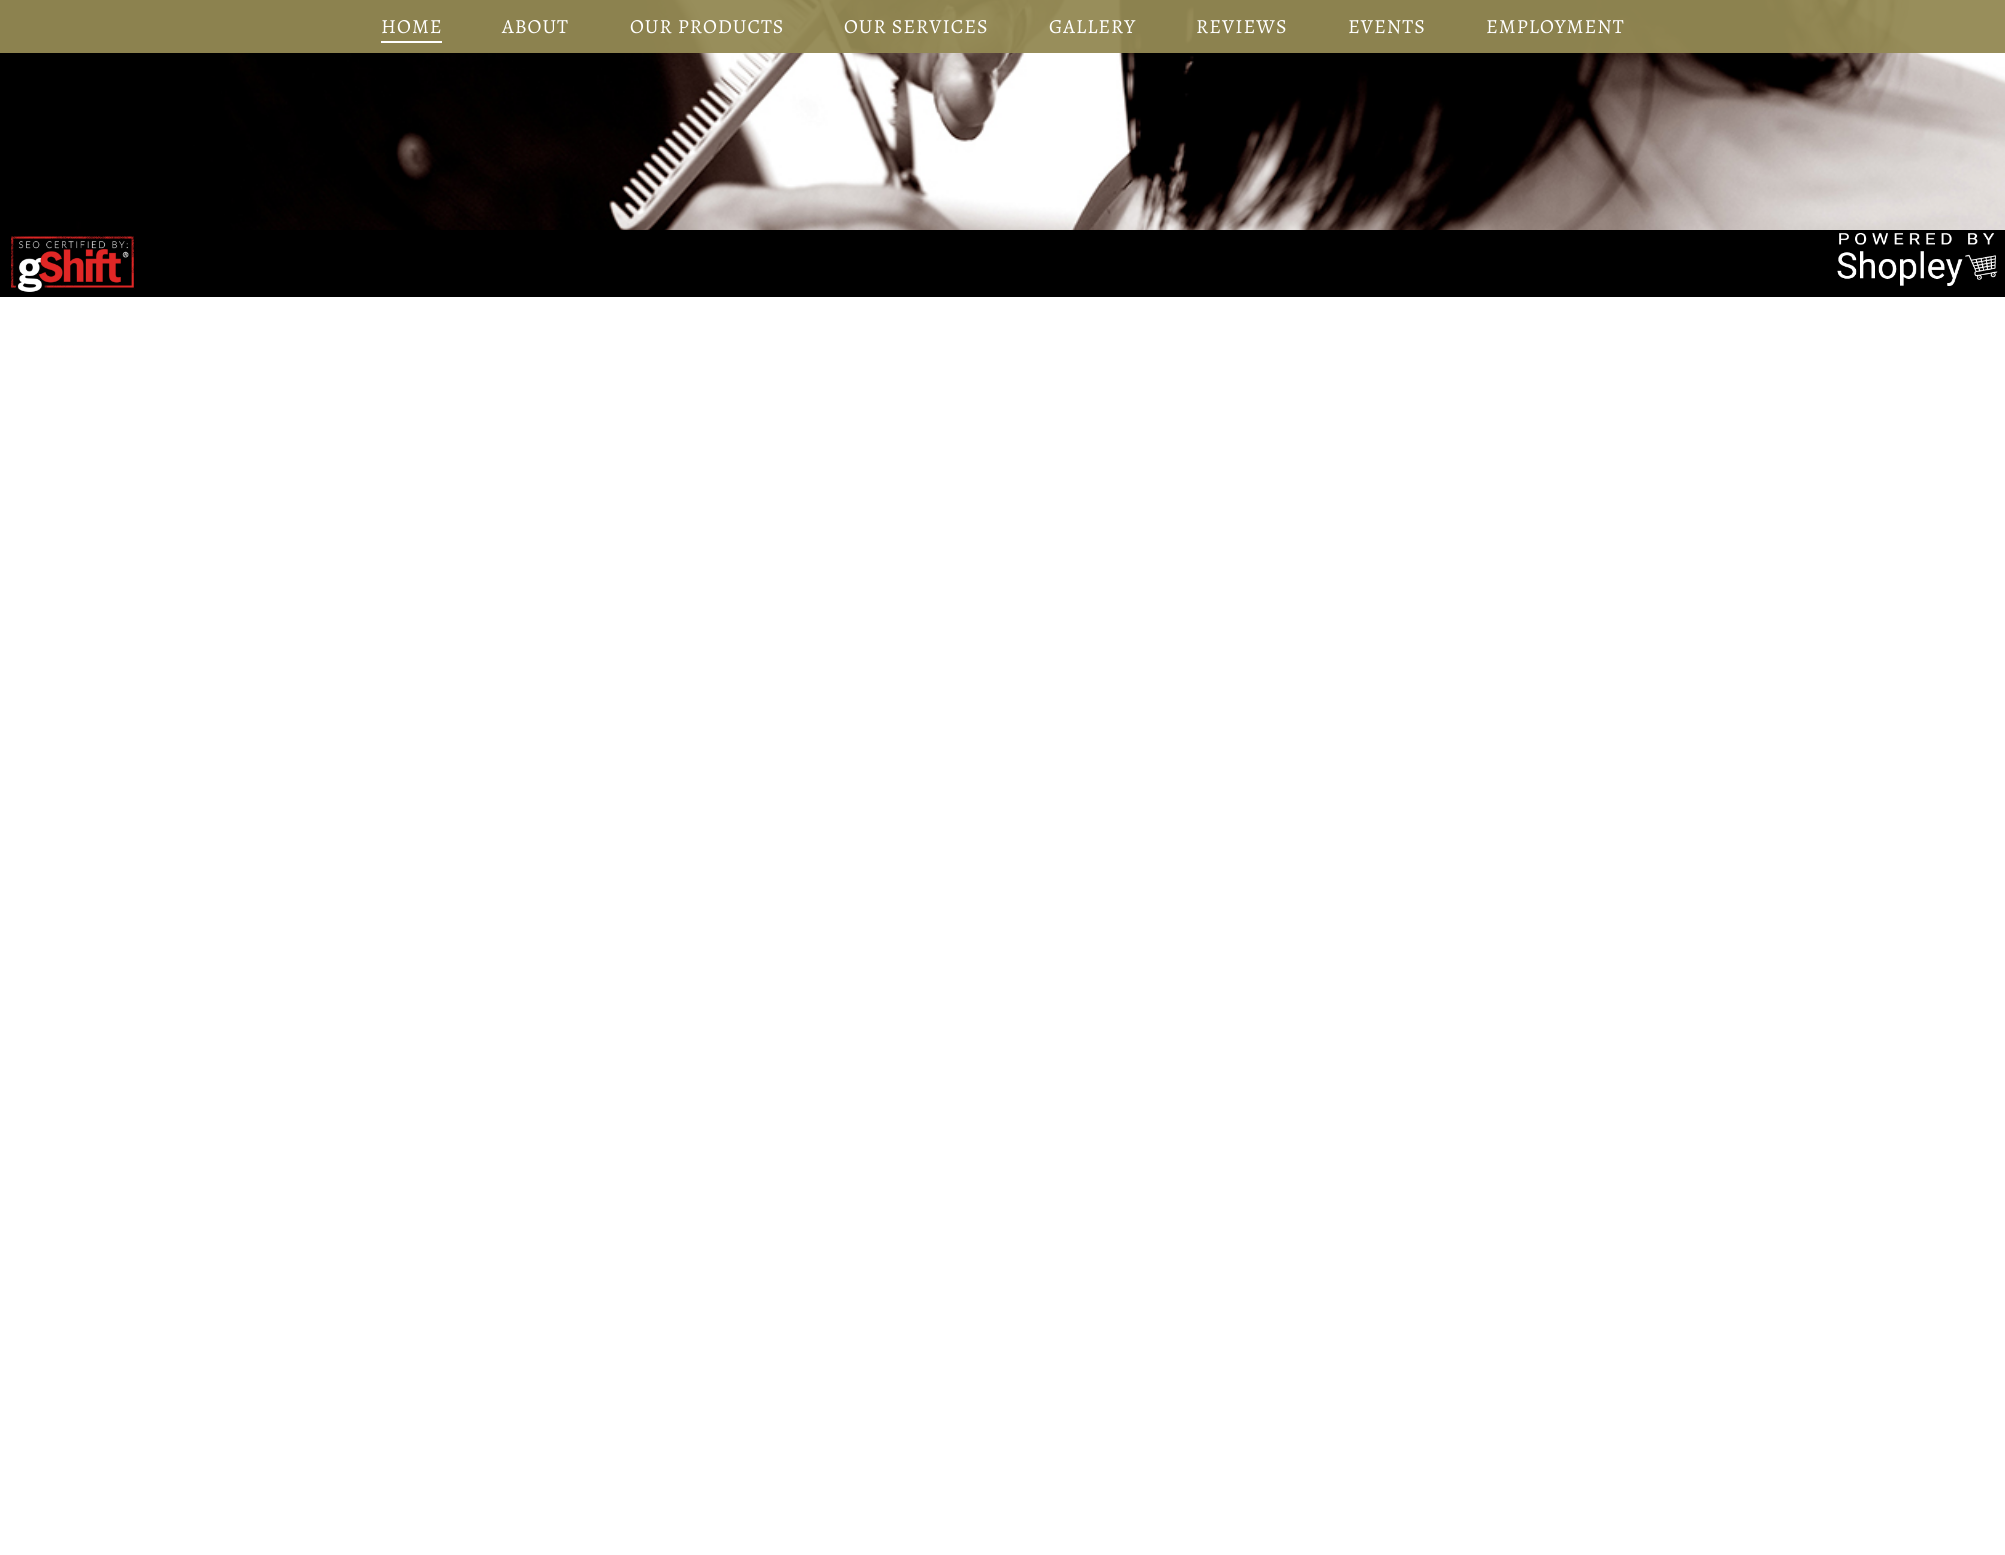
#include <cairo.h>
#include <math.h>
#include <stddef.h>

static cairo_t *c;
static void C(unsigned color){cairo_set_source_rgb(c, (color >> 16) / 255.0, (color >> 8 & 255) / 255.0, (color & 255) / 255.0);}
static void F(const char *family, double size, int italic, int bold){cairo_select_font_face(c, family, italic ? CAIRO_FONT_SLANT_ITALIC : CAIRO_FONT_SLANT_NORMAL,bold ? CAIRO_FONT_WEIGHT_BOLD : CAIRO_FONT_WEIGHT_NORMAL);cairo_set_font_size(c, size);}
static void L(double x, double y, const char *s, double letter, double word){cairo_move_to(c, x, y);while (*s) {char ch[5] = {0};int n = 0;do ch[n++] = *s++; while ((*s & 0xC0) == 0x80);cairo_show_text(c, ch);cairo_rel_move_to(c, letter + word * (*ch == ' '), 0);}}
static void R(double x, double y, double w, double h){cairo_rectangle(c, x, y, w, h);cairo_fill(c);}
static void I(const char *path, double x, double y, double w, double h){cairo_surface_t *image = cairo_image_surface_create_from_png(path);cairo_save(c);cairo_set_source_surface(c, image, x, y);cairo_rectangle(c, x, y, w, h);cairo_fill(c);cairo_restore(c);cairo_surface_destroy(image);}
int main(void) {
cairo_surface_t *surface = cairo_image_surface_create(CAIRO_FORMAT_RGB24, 2005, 1555);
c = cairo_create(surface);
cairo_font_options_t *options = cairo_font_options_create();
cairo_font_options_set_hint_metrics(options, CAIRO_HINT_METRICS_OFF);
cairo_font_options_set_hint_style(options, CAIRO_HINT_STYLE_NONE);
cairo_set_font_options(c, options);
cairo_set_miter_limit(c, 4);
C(0xffffff);
cairo_paint(c);
I("1.png",0,0,2005,230);
cairo_set_source_rgba(c,0.576,0.537,0.325,0.95);
R(0,0,2005,53);
F("Alegreya",20,0,0);
C(0xffffff);
L(381,33,"HOME",1,0);
R(381,41,61,2);
L(502,33,"ABOUT",1,0);
L(630,33,"OUR PRODUCTS",1,0);
L(844,33,"OUR SERVICES",1,0);
L(1049,33,"GALLERY",1,0);
L(1196,33,"REVIEWS",1,0);
L(1348,33,"EVENTS",1,0);
L(1486,33,"EMPLOYMENT",1,0);
C(0x000000);
R(0,230,2005,67);
I("2.png",11,236,124,56);
I("3.png",1837,233,161,53);
cairo_surface_write_to_png(surface, "o.png");
cairo_font_options_destroy(options);
cairo_destroy(c);
cairo_surface_destroy(surface);
return 0;
}
